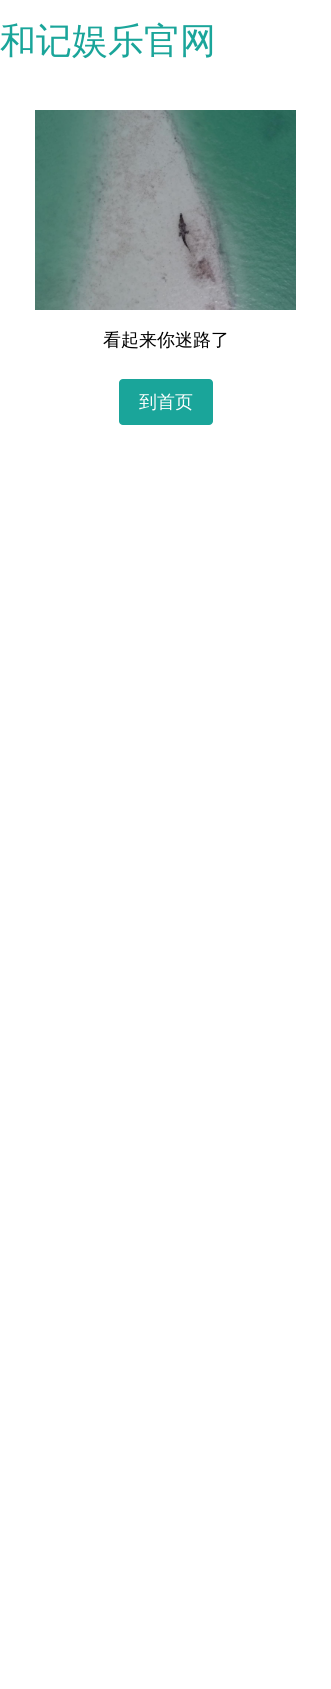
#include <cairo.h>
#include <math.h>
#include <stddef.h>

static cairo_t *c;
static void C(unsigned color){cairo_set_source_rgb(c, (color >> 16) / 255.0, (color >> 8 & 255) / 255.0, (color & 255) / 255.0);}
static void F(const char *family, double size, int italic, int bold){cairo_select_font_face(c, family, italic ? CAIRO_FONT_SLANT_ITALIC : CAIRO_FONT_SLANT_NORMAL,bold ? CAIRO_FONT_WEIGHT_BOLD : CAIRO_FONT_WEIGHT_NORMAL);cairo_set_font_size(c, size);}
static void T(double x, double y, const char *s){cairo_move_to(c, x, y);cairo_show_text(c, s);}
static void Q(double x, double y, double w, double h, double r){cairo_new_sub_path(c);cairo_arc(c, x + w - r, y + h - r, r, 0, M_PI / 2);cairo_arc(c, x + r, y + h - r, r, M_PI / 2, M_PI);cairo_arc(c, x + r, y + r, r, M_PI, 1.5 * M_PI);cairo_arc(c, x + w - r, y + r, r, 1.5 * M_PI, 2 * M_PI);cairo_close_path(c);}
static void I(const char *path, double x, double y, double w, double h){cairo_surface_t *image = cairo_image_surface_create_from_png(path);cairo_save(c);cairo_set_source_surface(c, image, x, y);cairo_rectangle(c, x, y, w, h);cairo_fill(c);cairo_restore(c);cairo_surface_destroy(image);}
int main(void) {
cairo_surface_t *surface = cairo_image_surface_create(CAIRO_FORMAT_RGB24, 331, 1689);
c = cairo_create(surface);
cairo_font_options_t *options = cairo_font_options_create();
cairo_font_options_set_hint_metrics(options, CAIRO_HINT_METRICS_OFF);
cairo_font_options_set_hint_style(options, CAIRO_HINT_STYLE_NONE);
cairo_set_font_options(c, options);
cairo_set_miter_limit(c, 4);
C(0xffffff);
cairo_paint(c);
F("WenQuanYi Zen Hei Medium",36,0,0);
C(0x1aa59a);
T(0,53,"和记娱乐官网");
I("1.png",35,110,261,200);
F("WenQuanYi Zen Hei Medium",18,0,0);
C(0x000000);
T(103,346,"看起来你迷路了");
C(0x1aa59a);
Q(119,379,94,46,4);
cairo_fill(c);
C(0xffffff);
T(139,408,"到首页");
cairo_surface_write_to_png(surface, "o.png");
cairo_font_options_destroy(options);
cairo_destroy(c);
cairo_surface_destroy(surface);
return 0;
}
